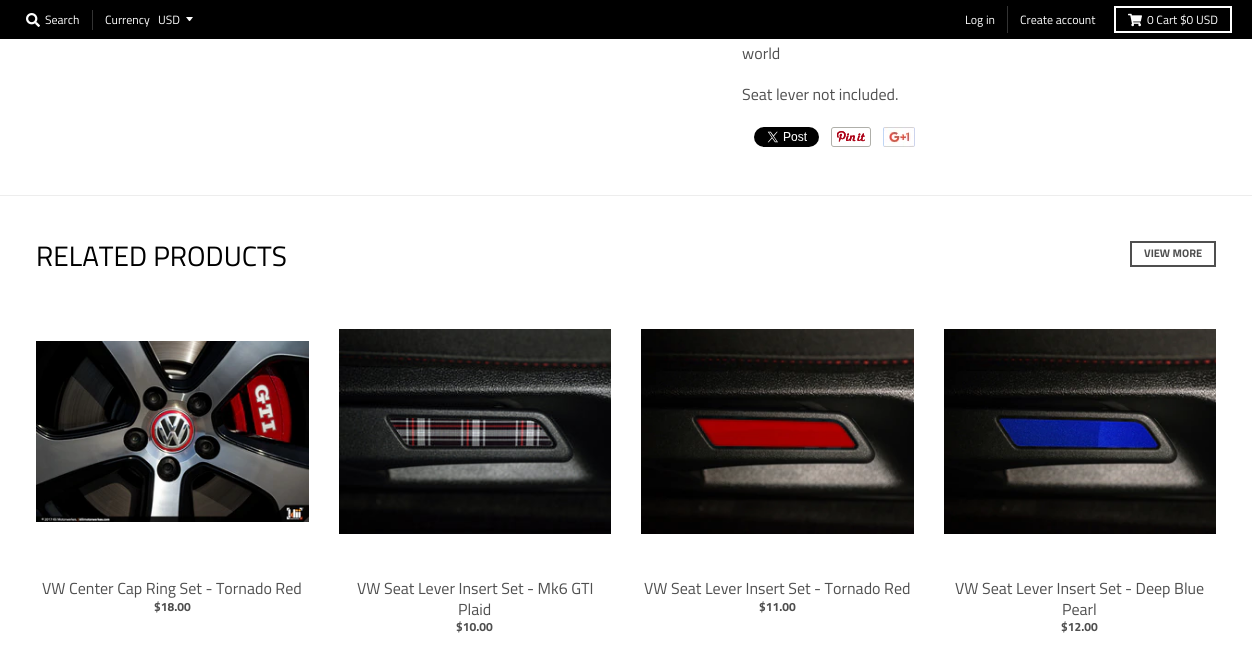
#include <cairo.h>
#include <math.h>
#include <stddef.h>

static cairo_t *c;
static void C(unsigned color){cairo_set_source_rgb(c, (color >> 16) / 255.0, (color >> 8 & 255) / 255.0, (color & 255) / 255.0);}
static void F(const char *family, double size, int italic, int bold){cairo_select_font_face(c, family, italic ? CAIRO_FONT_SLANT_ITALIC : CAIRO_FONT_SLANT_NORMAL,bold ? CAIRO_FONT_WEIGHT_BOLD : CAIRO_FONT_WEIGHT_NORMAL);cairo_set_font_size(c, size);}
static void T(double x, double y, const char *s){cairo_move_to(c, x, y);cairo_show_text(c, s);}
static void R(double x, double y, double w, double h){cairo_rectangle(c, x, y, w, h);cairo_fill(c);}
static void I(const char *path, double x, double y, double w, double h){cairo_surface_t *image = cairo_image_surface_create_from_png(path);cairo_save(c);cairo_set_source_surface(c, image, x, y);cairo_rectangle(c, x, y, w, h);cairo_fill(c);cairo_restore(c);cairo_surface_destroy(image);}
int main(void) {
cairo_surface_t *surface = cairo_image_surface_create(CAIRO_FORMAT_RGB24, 1252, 661);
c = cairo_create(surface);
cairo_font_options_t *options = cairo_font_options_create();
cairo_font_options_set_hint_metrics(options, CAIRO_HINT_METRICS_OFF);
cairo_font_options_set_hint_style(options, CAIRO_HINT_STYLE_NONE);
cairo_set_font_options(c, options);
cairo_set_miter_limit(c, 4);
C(0xffffff);
cairo_paint(c);
C(0x000000);
R(0,0,1252,39);
I("1.png",26,13,14,14);
F("Titillium Web",12,0,0);
C(0xffffff);
T(45,24,"Search");
C(0x333333);
R(92,10,1,20);
C(0xffffff);
T(105,24,"Currency");
cairo_new_path(c);
cairo_move_to(c,186,17);
cairo_curve_to(c,190.5,22.5,188.5,22.5,193,17);
cairo_close_path(c);
cairo_fill(c);
T(158,24,"USD");
C(0x333333);
R(1007,6,1,27);
C(0xffffff);
T(965,24,"Log in");
T(1020,24,"Create account");
cairo_rectangle(c,1115,7,116,25);
cairo_stroke(c);
I("2.png",1128,13,14,14);
T(1147,24,"0 Cart $0 USD");
C(0xededed);
R(0,195,1252,1);
F("Titillium Web",16,0,0);
C(0x4f4f4f);
T(742,59,"world");
T(742,100,"Seat lever not included.");
I("3.png",754,127,65,20);
I("4.png",831,127,40,20);
I("5.png",883,127,32,20);
F("Titillium Web",28,0,0);
C(0x000000);
T(36,266,"RELATED PRODUCTS");
cairo_rectangle(c,1131,242,84,24);
C(0x4f4f4f);
cairo_stroke(c);
F("Titillium Web",11,0,1);
T(1144,257,"VIEW MORE");
I("6.png",36,341,273,181);
F("Titillium Web",16,0,0);
T(42,594,"VW Center Cap Ring Set - Tornado Red");
F("Titillium Web",12,0,1);
T(154,611,"$18.00");
I("7.png",339,329,272,205);
F("Titillium Web",16,0,0);
T(357,594,"VW Seat Lever Insert Set - Mk6 GTI");
T(458,615,"Plaid");
F("Titillium Web",12,0,1);
T(456,631,"$10.00");
I("8.png",641,329,273,205);
F("Titillium Web",16,0,0);
T(644,594,"VW Seat Lever Insert Set - Tornado Red");
F("Titillium Web",12,0,1);
T(759,611,"$11.00");
I("9.png",944,329,272,205);
F("Titillium Web",16,0,0);
T(955,594,"VW Seat Lever Insert Set - Deep Blue");
T(1062,615,"Pearl");
F("Titillium Web",12,0,1);
T(1061,631,"$12.00");
cairo_surface_write_to_png(surface, "o.png");
cairo_font_options_destroy(options);
cairo_destroy(c);
cairo_surface_destroy(surface);
return 0;
}
